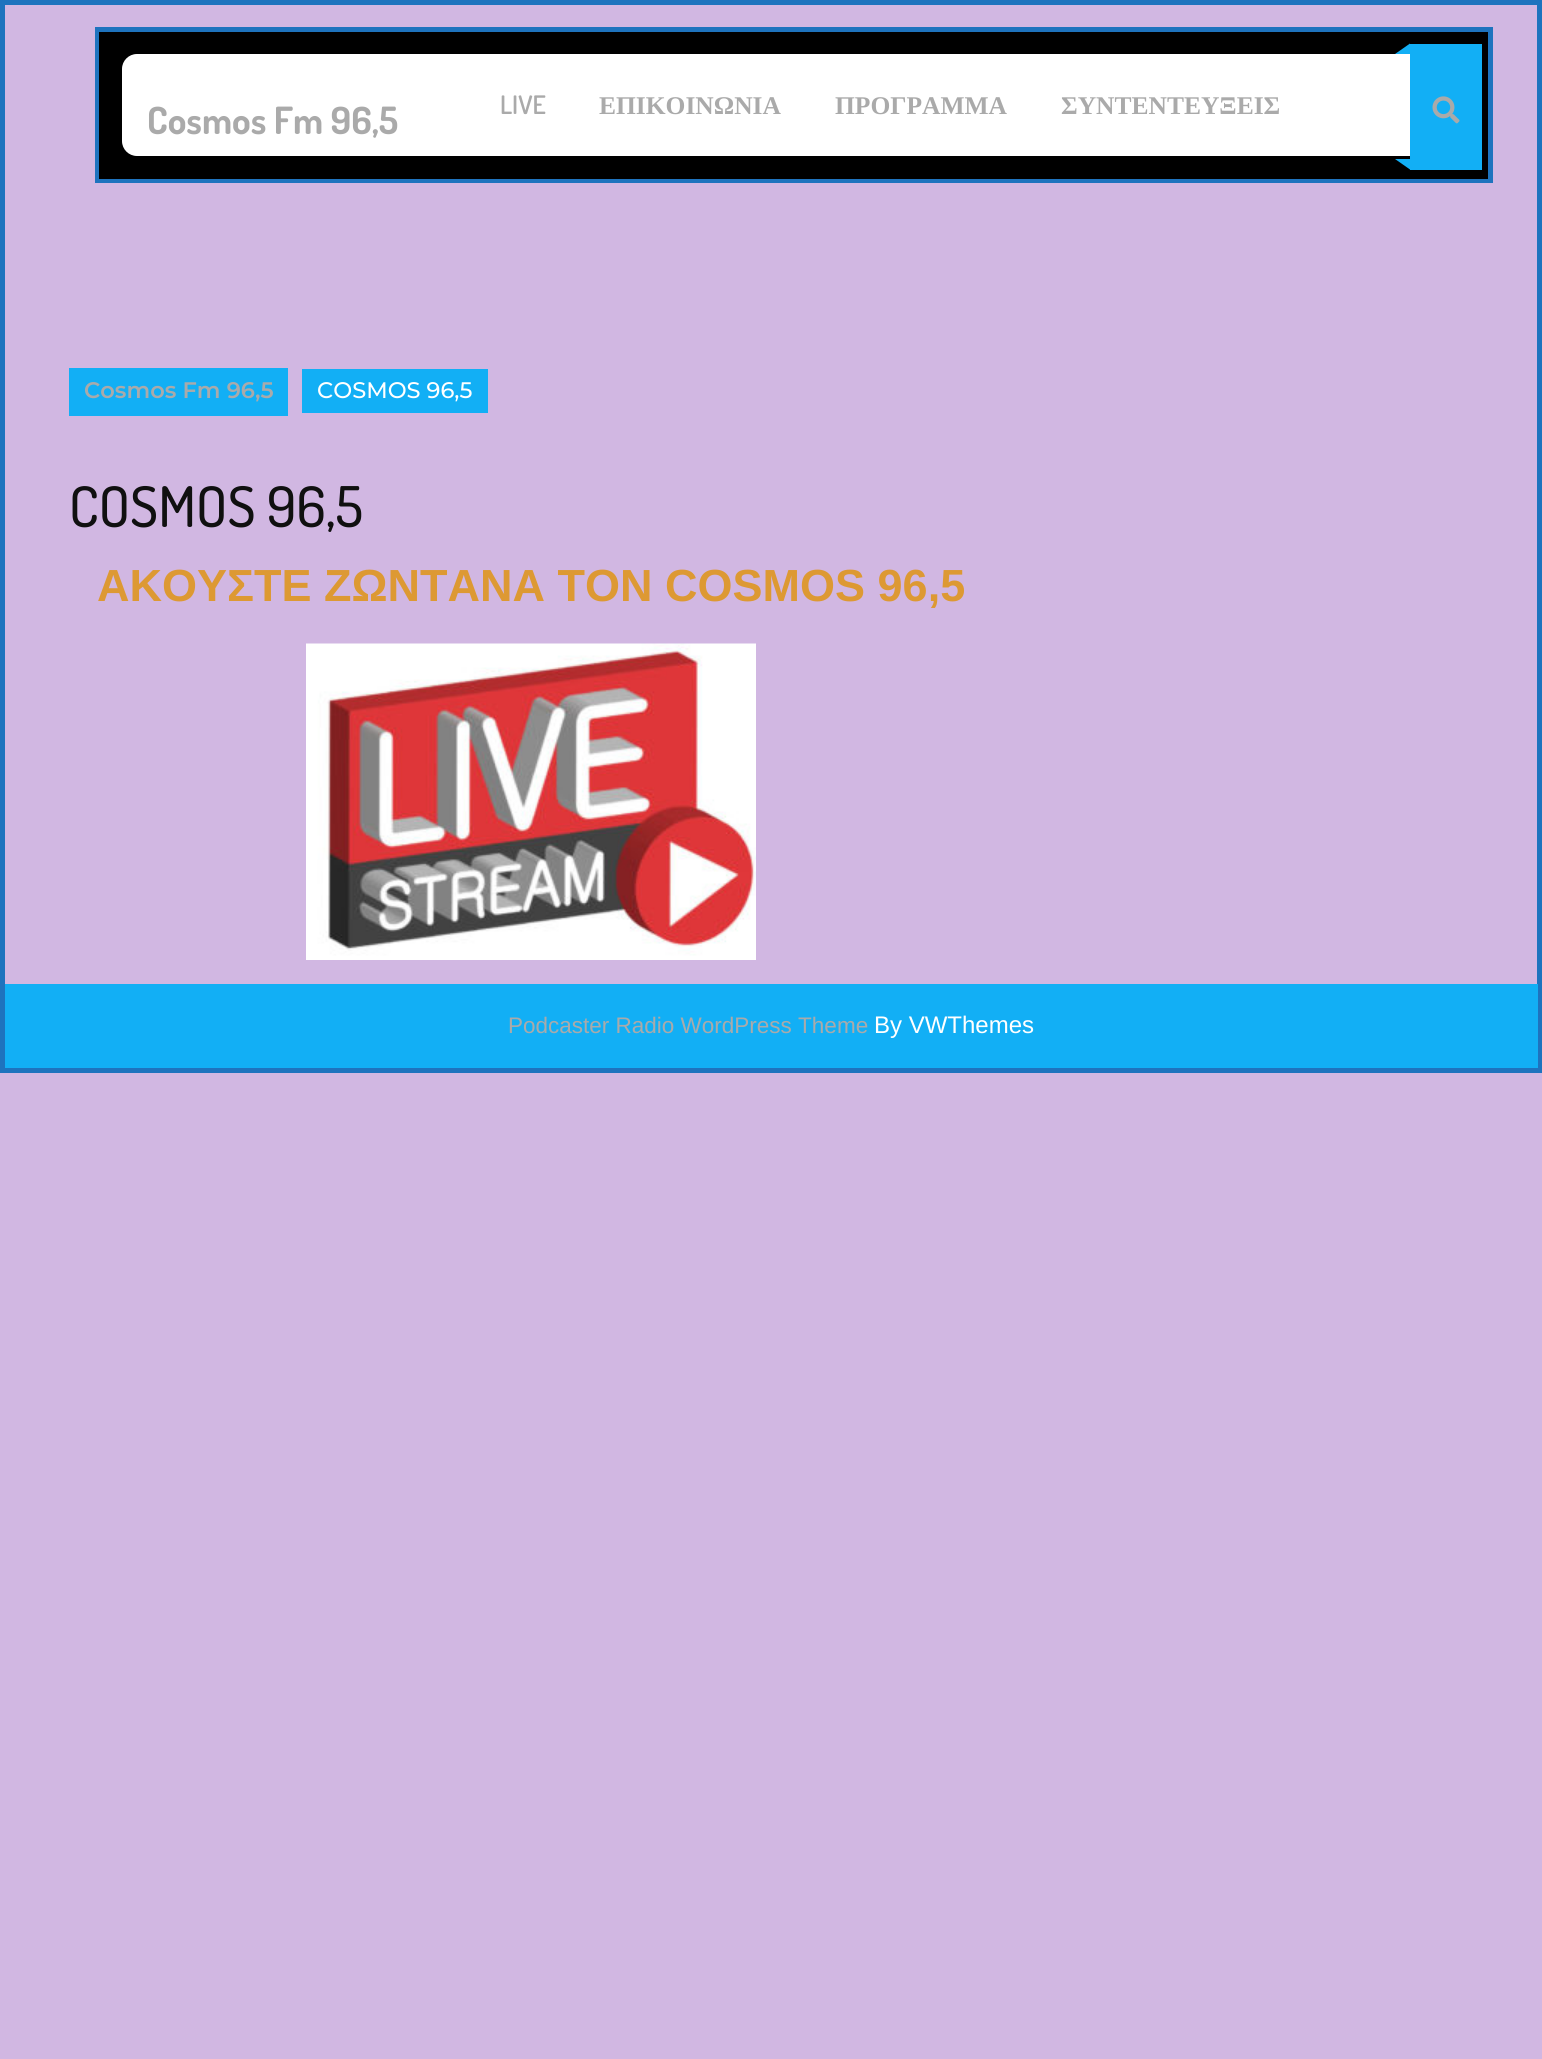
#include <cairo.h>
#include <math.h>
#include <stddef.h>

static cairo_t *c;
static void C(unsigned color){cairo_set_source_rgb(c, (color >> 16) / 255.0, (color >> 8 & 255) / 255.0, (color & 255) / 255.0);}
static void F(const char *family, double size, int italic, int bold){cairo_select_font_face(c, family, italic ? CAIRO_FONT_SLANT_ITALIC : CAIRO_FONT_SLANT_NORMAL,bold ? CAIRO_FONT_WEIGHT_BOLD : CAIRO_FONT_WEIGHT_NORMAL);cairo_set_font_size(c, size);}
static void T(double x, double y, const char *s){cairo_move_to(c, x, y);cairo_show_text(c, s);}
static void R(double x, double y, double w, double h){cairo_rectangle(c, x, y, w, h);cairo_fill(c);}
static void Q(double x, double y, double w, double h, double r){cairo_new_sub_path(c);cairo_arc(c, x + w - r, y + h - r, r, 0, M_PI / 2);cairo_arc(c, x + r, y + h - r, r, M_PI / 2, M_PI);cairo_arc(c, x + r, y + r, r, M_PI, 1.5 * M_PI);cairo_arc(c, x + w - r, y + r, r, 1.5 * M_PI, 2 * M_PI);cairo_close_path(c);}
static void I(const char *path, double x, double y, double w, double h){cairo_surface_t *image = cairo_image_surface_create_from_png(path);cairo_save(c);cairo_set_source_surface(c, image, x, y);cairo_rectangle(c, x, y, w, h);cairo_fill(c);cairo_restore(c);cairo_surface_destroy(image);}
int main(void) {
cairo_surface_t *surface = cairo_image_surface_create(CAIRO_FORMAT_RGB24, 1542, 2059);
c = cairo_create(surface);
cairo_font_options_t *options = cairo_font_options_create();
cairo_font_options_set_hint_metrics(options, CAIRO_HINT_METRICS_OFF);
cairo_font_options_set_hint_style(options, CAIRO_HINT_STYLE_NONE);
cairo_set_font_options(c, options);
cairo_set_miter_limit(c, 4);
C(0xd1b7e2);
cairo_paint(c);
cairo_rectangle(c,2.5,2.5,1537,1068);
C(0x1e73be);
cairo_set_line_width(c,5);
cairo_stroke(c);
cairo_rectangle(c,97.5,29.5,1393,151);
cairo_stroke(c);
C(0x000000);
R(99,32,1389,147);
C(0xffffff);
Q(122,54,1344,102,15);
cairo_fill(c);
F("Dosis",37.5,0,1);
C(0xaaaaaa);
T(147,134,"Cosmos Fm 96,5");
F("Dosis SemiBold",25.5,0,0);
T(500,114,"LIVE");
F("Liberation Serif",25.5,0,1);
T(599,114,"ΕΠΙΚΟΙΝΩΝΙΑ");
T(835,114,"ΠΡΟΓΡΑΜΜΑ");
T(1061,114,"ΣΥΝΤΕΝΤΕΥΞΕΙΣ");
C(0x12aff5);
R(1410,44,72,126);
cairo_new_path(c);
cairo_move_to(c,1410,54);
cairo_line_to(c,1395,54);
cairo_line_to(c,1410,43.5);
cairo_close_path(c);
cairo_fill(c);
I("1.png",1432,96,28,28);
cairo_new_path(c);
cairo_move_to(c,1395,159);
cairo_line_to(c,1410,159);
cairo_line_to(c,1410,169.5);
cairo_close_path(c);
cairo_fill(c);
R(69,368,219,48);
F("Montserrat SemiBold",22.5,0,0);
C(0xaaaaaa);
T(84,398,"Cosmos Fm 96,5");
C(0x12aff5);
R(302,369,186,44);
F("Montserrat Medium",22.5,0,0);
C(0xffffff);
T(317,398,"COSMOS 96,5");
F("Dosis Medium",56,0,0);
C(0x101010);
T(69,527,"COSMOS 96,5");
F("Liberation Sans",45,0,1);
C(0xdd9933);
T(97,601,"ΑΚΟΥΣΤΕ ΖΩΝΤΑΝΑ TON COSMOS 96,5");
I("2.png",306,643,450,317);
C(0x12aff5);
R(5,984,1533,84);
F("Liberation Sans",22.5,0,0);
C(0xaaaaaa);
T(508,1033,"Podcaster Radio WordPress Theme");
F("Liberation Sans",24,0,0);
C(0xffffff);
T(874,1033,"By VWThemes");
cairo_surface_write_to_png(surface, "o.png");
cairo_font_options_destroy(options);
cairo_destroy(c);
cairo_surface_destroy(surface);
return 0;
}
